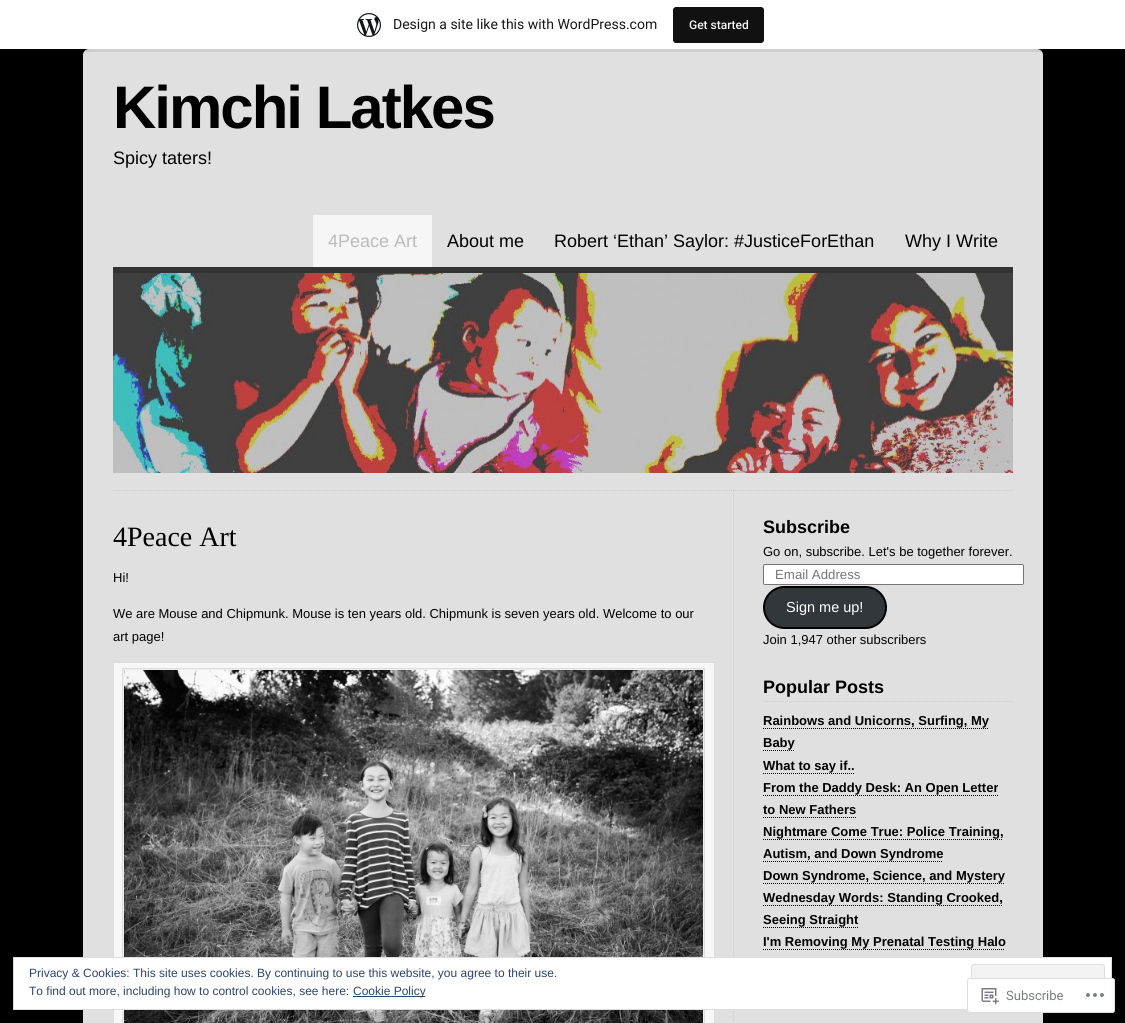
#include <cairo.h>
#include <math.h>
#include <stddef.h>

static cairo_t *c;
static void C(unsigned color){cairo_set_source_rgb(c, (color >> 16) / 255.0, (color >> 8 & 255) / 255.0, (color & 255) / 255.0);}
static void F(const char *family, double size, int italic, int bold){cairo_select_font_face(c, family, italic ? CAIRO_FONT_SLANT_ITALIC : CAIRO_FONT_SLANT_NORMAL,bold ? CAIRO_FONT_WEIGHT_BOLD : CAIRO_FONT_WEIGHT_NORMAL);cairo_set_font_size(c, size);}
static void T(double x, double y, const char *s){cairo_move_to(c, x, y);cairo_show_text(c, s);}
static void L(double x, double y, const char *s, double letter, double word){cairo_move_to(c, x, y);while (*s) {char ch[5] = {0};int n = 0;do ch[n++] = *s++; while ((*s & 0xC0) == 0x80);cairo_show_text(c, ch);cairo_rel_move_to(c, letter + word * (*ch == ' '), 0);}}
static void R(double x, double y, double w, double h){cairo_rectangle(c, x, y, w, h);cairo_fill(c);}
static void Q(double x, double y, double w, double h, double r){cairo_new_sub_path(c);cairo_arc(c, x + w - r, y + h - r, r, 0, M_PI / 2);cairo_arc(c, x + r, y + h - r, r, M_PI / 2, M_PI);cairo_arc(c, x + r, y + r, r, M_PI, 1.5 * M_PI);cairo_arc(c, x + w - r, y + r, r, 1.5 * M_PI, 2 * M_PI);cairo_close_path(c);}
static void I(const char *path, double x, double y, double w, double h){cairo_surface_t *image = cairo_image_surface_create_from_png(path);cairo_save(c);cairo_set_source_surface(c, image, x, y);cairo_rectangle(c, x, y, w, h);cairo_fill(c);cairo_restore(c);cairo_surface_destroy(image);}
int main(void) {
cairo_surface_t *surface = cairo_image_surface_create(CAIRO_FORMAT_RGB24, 1125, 1023);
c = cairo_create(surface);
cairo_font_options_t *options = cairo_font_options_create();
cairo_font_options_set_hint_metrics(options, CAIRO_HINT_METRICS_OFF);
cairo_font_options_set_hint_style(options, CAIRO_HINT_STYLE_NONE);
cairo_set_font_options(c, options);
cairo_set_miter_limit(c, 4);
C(0x000000);
cairo_paint(c);
C(0xe0e0e0);
Q(83,49,960,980,6);
cairo_fill(c);
cairo_set_source_rgba(c,0,0,0,0.08);
cairo_new_path(c);
cairo_move_to(c,1,49);
cairo_line_to(c,1,52);
cairo_line_to(c,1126,52);
cairo_line_to(c,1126,3);
cairo_line_to(c,1125,3);
cairo_line_to(c,1125,49);
cairo_close_path(c);
cairo_fill(c);
C(0xffffff);
R(0,0,1125,49);
I("1.png",357,13,24,24);
F("Roboto",14,0,0);
C(0x171717);
T(393,29,"Design a site like this with WordPress.com");
C(0x111111);
Q(673,7,91,36,3);
cairo_fill(c);
F("Roboto Medium",12,0,0);
C(0xf6f7f7);
T(689,29,"Get started");
cairo_new_path(c);
cairo_move_to(c,113,490.5);
cairo_line_to(c,1013,490.5);
C(0xcccccc);
cairo_set_line_width(c,1);
cairo_set_dash(c,(double[]){1,1},2,0);
cairo_stroke(c);
F("Liberation Sans",60,0,1);
C(0x000000);
L(113,128,"Kimchi Latkes",-2,0);
F("Liberation Sans",18,0,0);
T(113,164,"Spicy taters!");
C(0xf6f6f6);
R(313,215,119,52);
C(0xbbbbbb);
T(328,247,"4Peace Art");
C(0x000000);
T(447,247,"About me");
T(554,247,"Robert ‘Ethan’ Saylor: #JusticeForEthan");
T(905,247,"Why I Write");
C(0x333333);
R(113,267,900,6);
I("2.png",113,273,900,200);
cairo_new_path(c);
cairo_move_to(c,733.5,491);
cairo_line_to(c,733.5,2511);
C(0xcccccc);
cairo_stroke(c);
F("Liberation Serif",28,0,0);
C(0x000000);
T(113,546,"4Peace Art");
F("Liberation Sans",13,0,0);
T(113,582,"Hi!");
T(113,618,"We are Mouse and Chipmunk. Mouse is ten years old. Chipmunk is seven years old. Welcome to our");
T(113,641,"art page!");
C(0xf7f7f7);
cairo_rectangle(c,113.5,662.5,601,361);
cairo_fill_preserve(c);
C(0xdddddd);
cairo_set_dash(c,NULL,0,0);
cairo_stroke(c);
C(0xeeeeee);
cairo_rectangle(c,122.5,668.5,582,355);
cairo_fill_preserve(c);
C(0xdddddd);
cairo_stroke(c);
I("3.png",124,670,579,353);
F("Liberation Sans",18,0,1);
C(0x000000);
T(763,533,"Subscribe");
F("Liberation Sans",13,0,0);
T(763,556,"Go on, subscribe. Let's be together forever.");
C(0xffffff);
Q(763.5,564.5,260,20,1.5);
cairo_fill_preserve(c);
C(0x767676);
cairo_stroke(c);
F("Liberation Sans",13.25,0,0);
C(0x757575);
T(775,579,"Email Address");
C(0x32373c);
Q(764,587,122,41,20.5);
cairo_fill_preserve(c);
C(0x000000);
cairo_set_line_width(c,2);
cairo_stroke(c);
F("Liberation Sans",14.5,0,0);
C(0xffffff);
T(786,612,"Sign me up!");
F("Liberation Sans",13,0,0);
C(0x000000);
T(763,644,"Join 1,947 other subscribers");
cairo_new_path(c);
cairo_move_to(c,763,701.5);
cairo_line_to(c,1013,701.5);
C(0xcccccc);
cairo_set_line_width(c,1);
cairo_set_dash(c,(double[]){1,1},2,0);
cairo_stroke(c);
F("Liberation Sans",18,0,1);
C(0x000000);
T(763,693,"Popular Posts");
F("Liberation Sans",13,0,1);
T(763,725,"Rainbows and Unicorns, Surfing, My");
cairo_new_path(c);
cairo_move_to(c,763,728.5);
cairo_line_to(c,989,728.5);
cairo_stroke(c);
T(763,747,"Baby");
cairo_new_path(c);
cairo_move_to(c,763,750.5);
cairo_line_to(c,794,750.5);
cairo_stroke(c);
T(763,770,"What to say if..");
cairo_new_path(c);
cairo_move_to(c,763,773.5);
cairo_line_to(c,854,773.5);
cairo_stroke(c);
T(763,792,"From the Daddy Desk: An Open Letter");
cairo_new_path(c);
cairo_move_to(c,763,795.5);
cairo_line_to(c,998,795.5);
cairo_stroke(c);
T(763,814,"to New Fathers");
cairo_new_path(c);
cairo_move_to(c,763,817.5);
cairo_line_to(c,856,817.5);
cairo_stroke(c);
T(763,836,"Nightmare Come True: Police Training,");
cairo_new_path(c);
cairo_move_to(c,763,839.5);
cairo_line_to(c,1003,839.5);
cairo_stroke(c);
T(763,858,"Autism, and Down Syndrome");
cairo_new_path(c);
cairo_move_to(c,763,861.5);
cairo_line_to(c,943,861.5);
cairo_stroke(c);
T(763,880,"Down Syndrome, Science, and Mystery");
cairo_new_path(c);
cairo_move_to(c,763,883.5);
cairo_line_to(c,1005,883.5);
cairo_stroke(c);
T(763,902,"Wednesday Words: Standing Crooked,");
cairo_new_path(c);
cairo_move_to(c,763,905.5);
cairo_line_to(c,1002,905.5);
cairo_stroke(c);
T(763,924,"Seeing Straight");
cairo_new_path(c);
cairo_move_to(c,763,927.5);
cairo_line_to(c,858,927.5);
cairo_stroke(c);
T(763,946,"I'm Removing My Prenatal Testing Halo");
cairo_new_path(c);
cairo_move_to(c,763,949.5);
cairo_line_to(c,1005,949.5);
cairo_stroke(c);
C(0xffffff);
cairo_rectangle(c,13.5,957.5,1098,52);
cairo_fill_preserve(c);
C(0xdedede);
cairo_set_dash(c,NULL,0,0);
cairo_stroke(c);
C(0xf3f3f3);
Q(971.5,964.5,133,38,2.5);
cairo_fill_preserve(c);
C(0xdedede);
cairo_stroke(c);
cairo_set_source_rgba(c,1,1,1,0.98);
Q(967,978,148,35,3);
cairo_fill(c);
Q(967.5,978.5,147,34,2.5);
cairo_set_source_rgba(c,0.863,0.863,0.871,0.98);
cairo_stroke(c);
I("4.png",981,988,18,17);
F("Roboto",13,0,0);
C(0x7a7e84);
T(1006,1000,"Subscribe");
I("5.png",1086,993,18,4);
F("Liberation Sans",12,0,0);
C(0x2e4467);
T(29,977,"Privacy & Cookies: This site uses cookies. By continuing to use this website, you agree to their use.");
T(29,995,"To find out more, including how to control cookies, see here:");
R(353,996,72,1);
T(353,995,"Cookie Policy");
cairo_surface_write_to_png(surface, "o.png");
cairo_font_options_destroy(options);
cairo_destroy(c);
cairo_surface_destroy(surface);
return 0;
}
